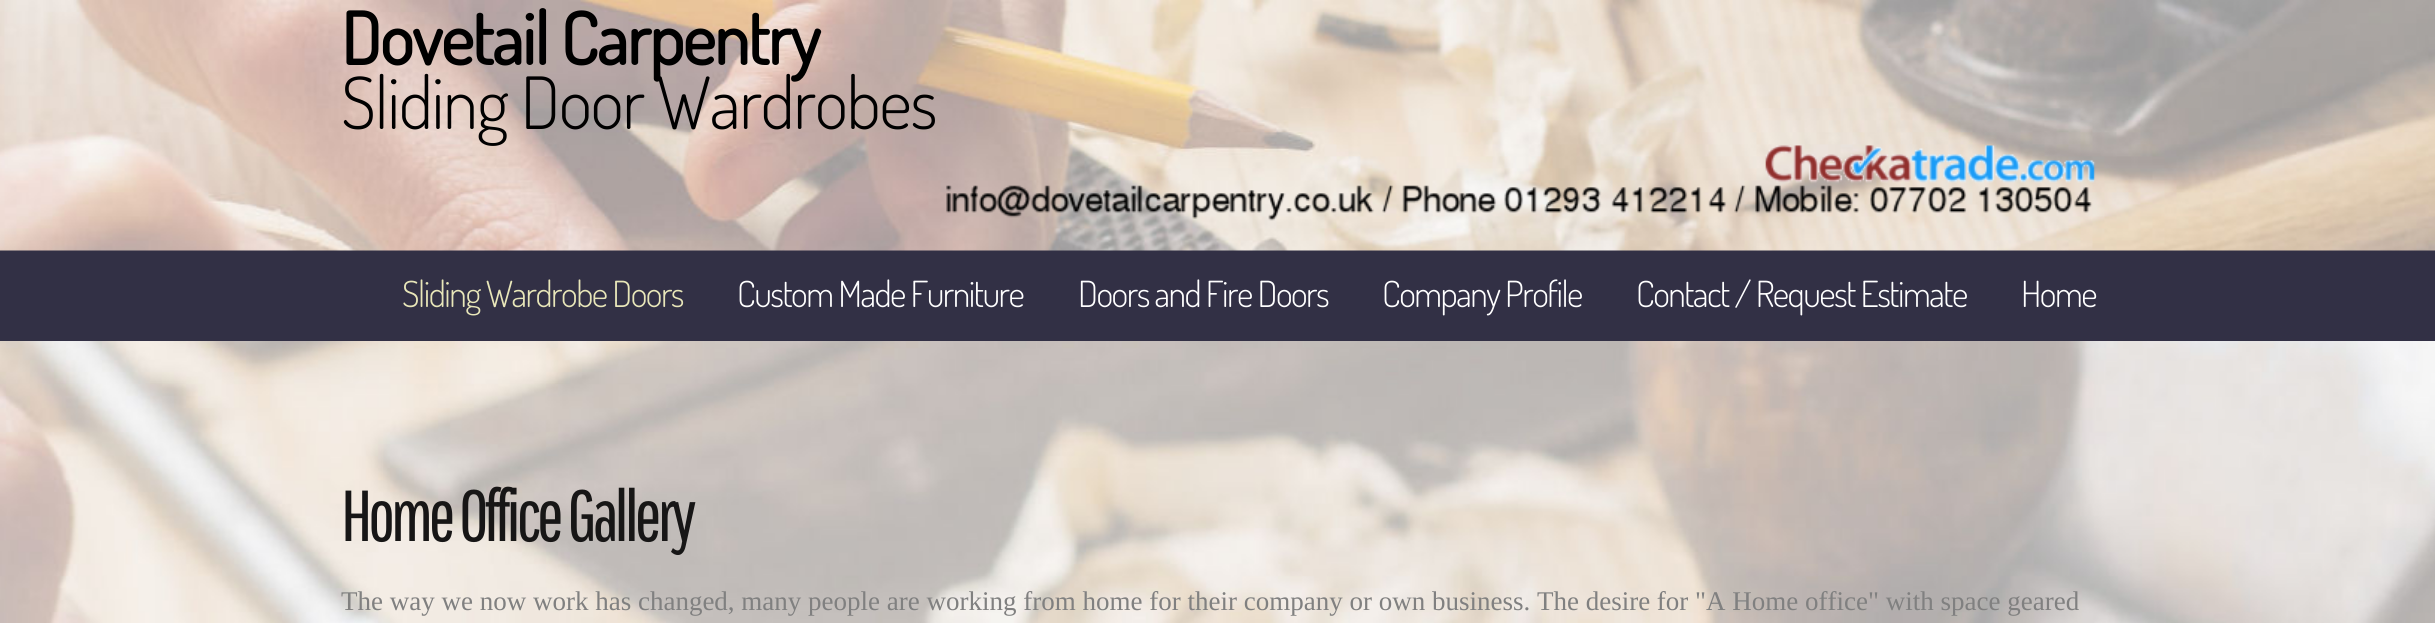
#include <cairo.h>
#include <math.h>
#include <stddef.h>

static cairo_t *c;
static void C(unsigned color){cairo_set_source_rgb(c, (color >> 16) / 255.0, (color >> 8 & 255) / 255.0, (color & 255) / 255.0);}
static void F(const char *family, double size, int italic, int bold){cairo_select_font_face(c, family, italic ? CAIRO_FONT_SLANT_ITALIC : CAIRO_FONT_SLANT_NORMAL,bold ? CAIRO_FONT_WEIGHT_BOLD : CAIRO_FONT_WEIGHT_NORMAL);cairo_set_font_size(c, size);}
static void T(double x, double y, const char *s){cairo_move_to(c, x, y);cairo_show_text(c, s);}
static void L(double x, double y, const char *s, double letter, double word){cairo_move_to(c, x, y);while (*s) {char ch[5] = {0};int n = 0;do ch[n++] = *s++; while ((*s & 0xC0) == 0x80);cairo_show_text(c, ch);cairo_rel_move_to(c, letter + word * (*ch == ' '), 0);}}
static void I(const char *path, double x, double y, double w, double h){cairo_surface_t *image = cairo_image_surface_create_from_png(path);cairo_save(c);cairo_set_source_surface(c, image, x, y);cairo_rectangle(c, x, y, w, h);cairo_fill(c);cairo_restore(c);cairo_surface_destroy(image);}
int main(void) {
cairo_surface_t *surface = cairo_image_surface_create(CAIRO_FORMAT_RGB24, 2435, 623);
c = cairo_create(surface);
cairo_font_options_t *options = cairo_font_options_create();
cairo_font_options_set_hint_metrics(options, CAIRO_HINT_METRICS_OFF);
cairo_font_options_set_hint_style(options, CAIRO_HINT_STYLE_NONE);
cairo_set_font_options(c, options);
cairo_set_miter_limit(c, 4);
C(0x323045);
cairo_paint(c);
I("1.png",0,0,2435,251);
F("Dosis",72,0,1);
C(0x000000);
L(341,65,"Dovetail Carpentry",-1.5,0);
F("Dosis Light",72,0,0);
L(341,129,"Sliding Door Wardrobes",-1.5,0);
I("2.png",946,145,1150,76);
F("Dosis Light",36,0,0);
C(0xe8e6b9);
L(402,307,"Sliding Wardrobe Doors",-1.5,0);
C(0xffffff);
L(737,307,"Custom Made Furniture",-1.5,0);
L(1078,307,"Doors and Fire Doors",-1.5,0);
L(1382,307,"Company Profile",-1.5,0);
L(1636,307,"Contact / Request Estimate",-1.5,0);
L(2021,307,"Home",-1.5,0);
I("3.png",0,341,2435,282);
F("Pathway Gothic One",72,0,0);
C(0x171616);
L(341,541,"Home Office Gallery",-4.5,2);
F("Liberation Serif",27,0,0);
C(0x808080);
T(341,610,"The way we now work has changed, many people are working from home for their company or own business. The desire for \"A Home office\" with space geared");
cairo_surface_write_to_png(surface, "o.png");
cairo_font_options_destroy(options);
cairo_destroy(c);
cairo_surface_destroy(surface);
return 0;
}
